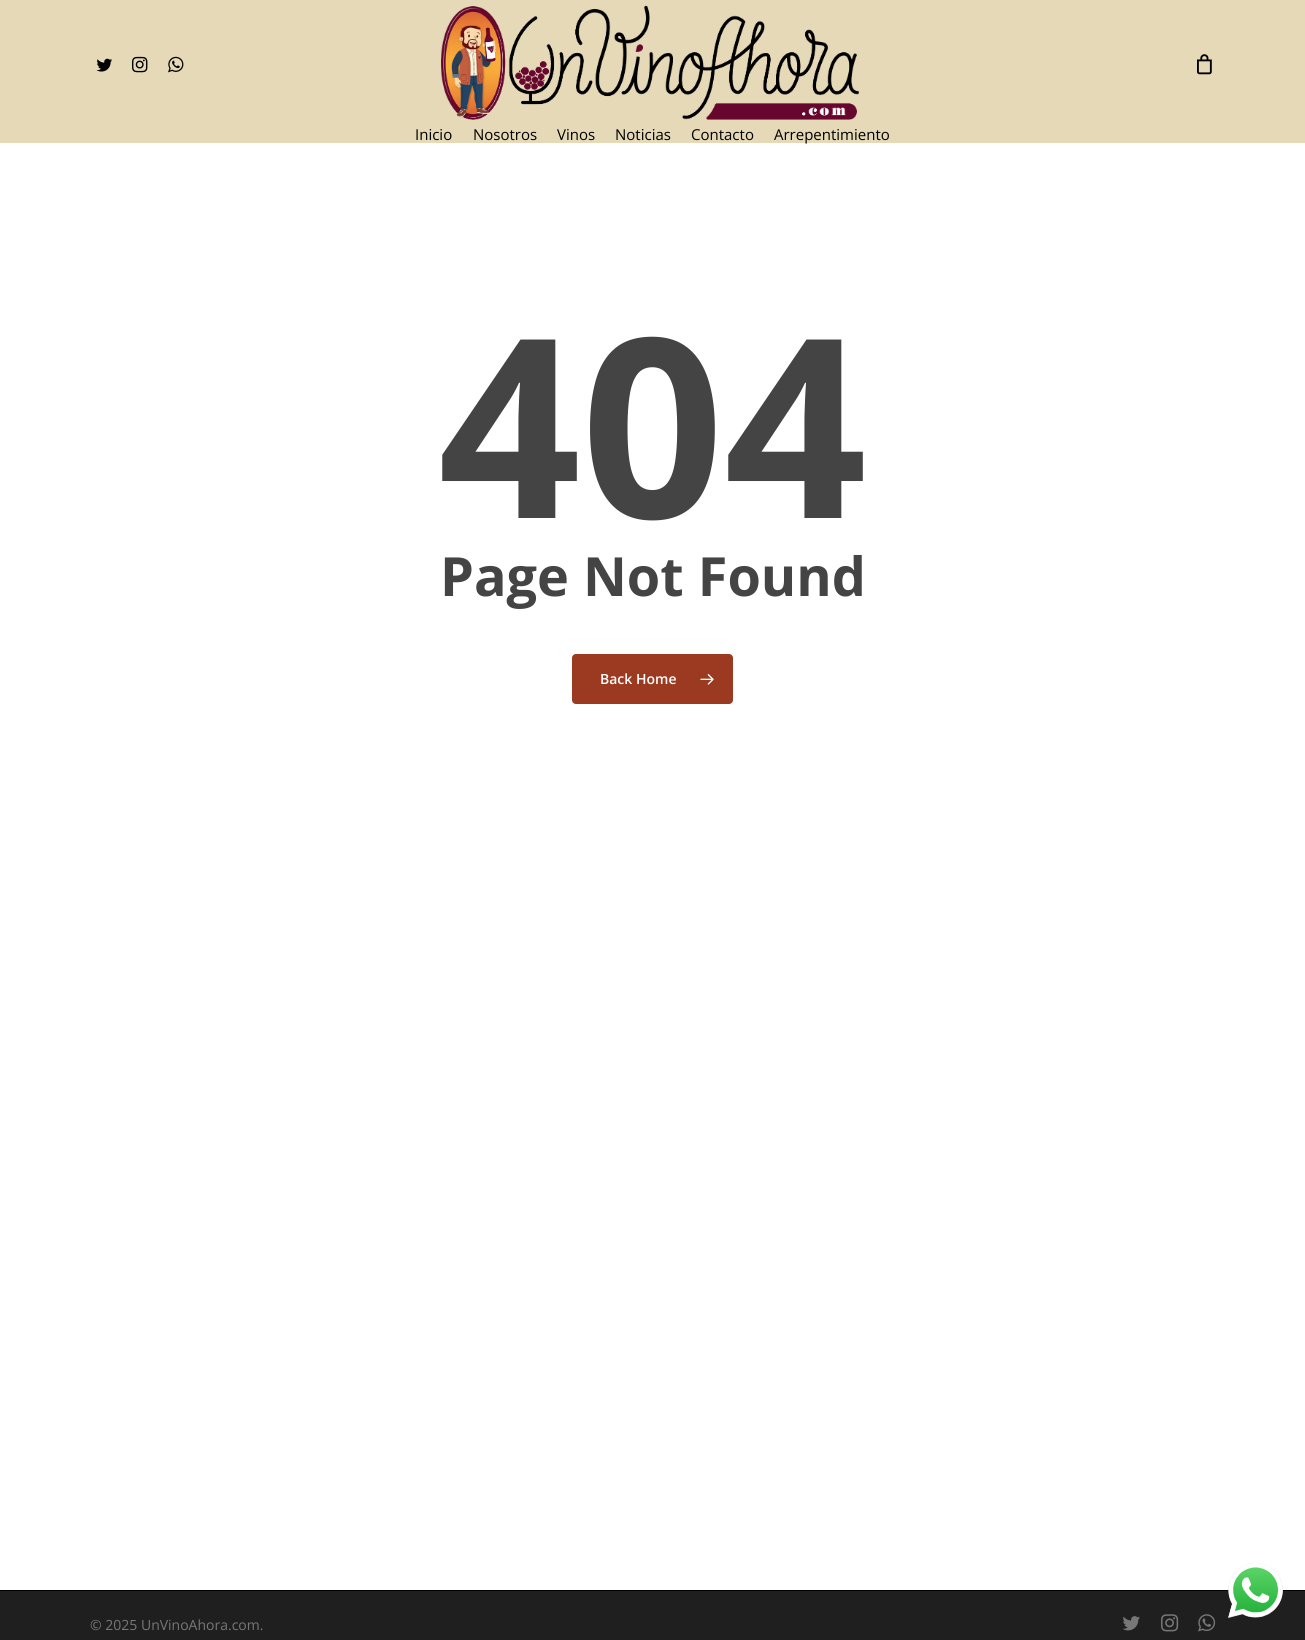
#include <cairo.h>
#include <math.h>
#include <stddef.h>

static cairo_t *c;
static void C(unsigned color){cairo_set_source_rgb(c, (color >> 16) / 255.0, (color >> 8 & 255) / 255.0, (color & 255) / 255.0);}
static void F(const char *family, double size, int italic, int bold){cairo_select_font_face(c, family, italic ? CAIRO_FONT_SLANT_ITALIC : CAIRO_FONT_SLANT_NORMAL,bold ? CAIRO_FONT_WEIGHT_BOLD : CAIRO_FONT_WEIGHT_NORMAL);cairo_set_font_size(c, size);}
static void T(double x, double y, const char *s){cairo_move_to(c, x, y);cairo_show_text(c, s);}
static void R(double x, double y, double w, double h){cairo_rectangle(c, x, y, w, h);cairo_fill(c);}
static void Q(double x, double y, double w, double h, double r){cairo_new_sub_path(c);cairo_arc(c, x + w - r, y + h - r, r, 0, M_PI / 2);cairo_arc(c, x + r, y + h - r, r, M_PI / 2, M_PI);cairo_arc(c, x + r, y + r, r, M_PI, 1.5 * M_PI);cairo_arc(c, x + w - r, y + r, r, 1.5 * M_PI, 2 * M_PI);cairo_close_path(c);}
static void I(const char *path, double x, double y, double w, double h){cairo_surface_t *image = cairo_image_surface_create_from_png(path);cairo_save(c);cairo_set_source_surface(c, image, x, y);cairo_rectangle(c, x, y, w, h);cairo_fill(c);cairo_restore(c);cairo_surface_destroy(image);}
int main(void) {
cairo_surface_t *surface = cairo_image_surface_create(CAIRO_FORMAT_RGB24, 1305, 1640);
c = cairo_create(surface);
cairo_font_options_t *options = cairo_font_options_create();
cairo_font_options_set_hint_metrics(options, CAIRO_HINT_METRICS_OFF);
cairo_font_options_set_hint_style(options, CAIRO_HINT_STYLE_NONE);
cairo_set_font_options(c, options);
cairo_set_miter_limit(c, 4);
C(0xffffff);
cairo_paint(c);
C(0xe6d9b7);
R(0,0,1305,143);
I("1.png",96,58,17,14);
I("2.png",132,56,16,17);
I("3.png",168,56,16,17);
I("4.png",441,5,418,115);
I("5.png",1197,54,15,21);
F("Open Sans",15,0,0);
C(0x000000);
T(415,140,"Inicio");
T(473,140,"Nosotros");
T(557,140,"Vinos");
T(615,140,"Noticias");
T(691,140,"Contacto");
T(774,140,"Arrepentimiento");
F("Open Sans",250,0,1);
C(0x444444);
T(438,518,"404");
F("Open Sans",54,0,1);
T(440,596,"Page Not Found");
C(0x9c3921);
Q(572,654,161,50,4);
cairo_fill(c);
F("Open Sans SemiBold",14,0,0);
C(0xffffff);
T(600,684,"Back Home");
I("6.png",700,674,14,11);
C(0x000000);
R(0,1590,1305,1);
C(0x1f1f1f);
R(0,1591,1305,49);
F("Open Sans",14,0,0);
C(0x777777);
T(90,1630,"© 2025 UnVinoAhora.com.");
I("7.png",1122,1616,18,15);
I("8.png",1161,1614,18,18);
I("9.png",1198,1614,18,18);
I("10.png",1228,1563,55,55);
cairo_surface_write_to_png(surface, "o.png");
cairo_font_options_destroy(options);
cairo_destroy(c);
cairo_surface_destroy(surface);
return 0;
}
